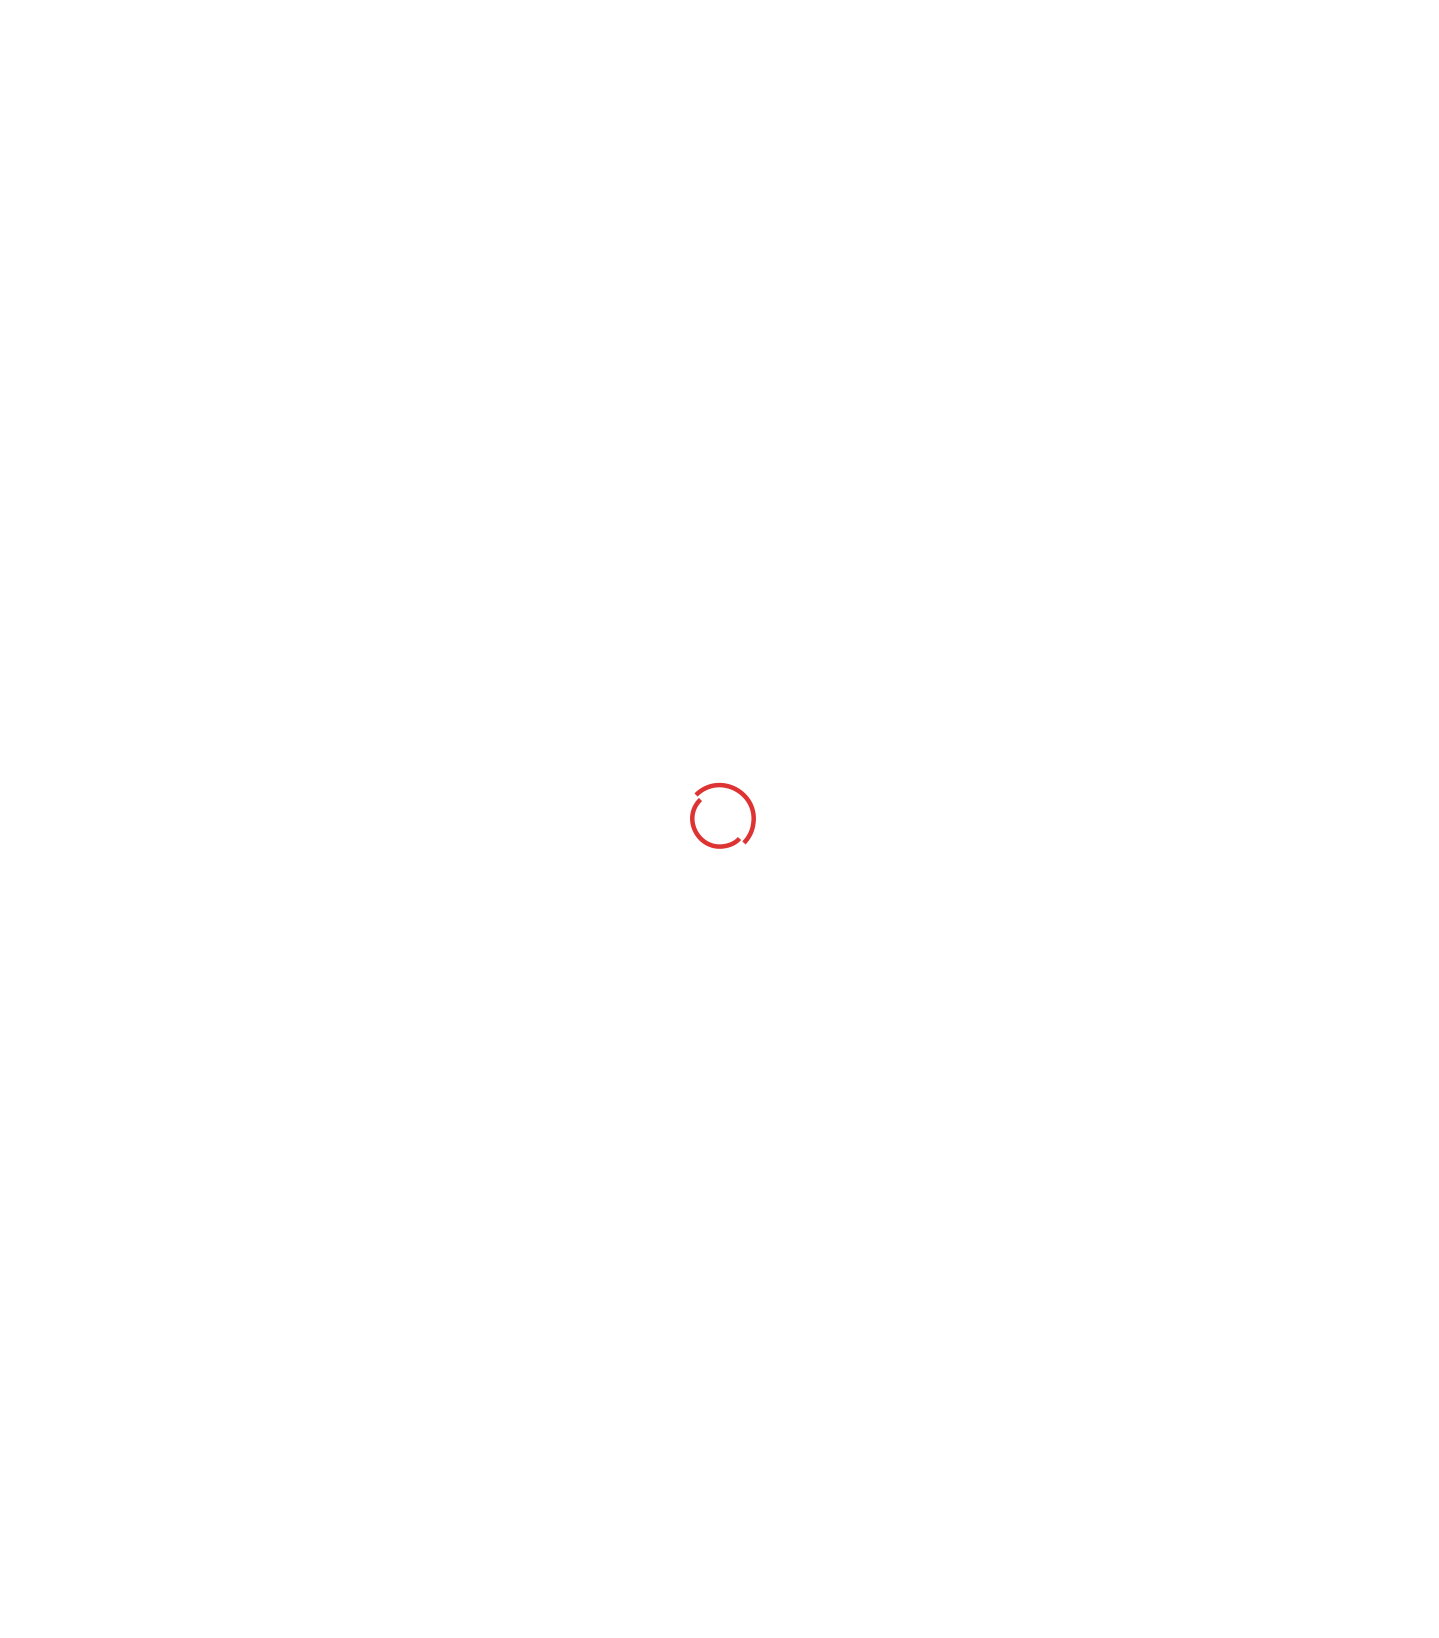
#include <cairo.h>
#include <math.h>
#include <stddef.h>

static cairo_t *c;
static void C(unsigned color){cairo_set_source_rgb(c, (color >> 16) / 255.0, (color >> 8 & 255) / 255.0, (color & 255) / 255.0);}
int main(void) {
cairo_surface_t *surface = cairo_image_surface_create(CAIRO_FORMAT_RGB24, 1439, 1638);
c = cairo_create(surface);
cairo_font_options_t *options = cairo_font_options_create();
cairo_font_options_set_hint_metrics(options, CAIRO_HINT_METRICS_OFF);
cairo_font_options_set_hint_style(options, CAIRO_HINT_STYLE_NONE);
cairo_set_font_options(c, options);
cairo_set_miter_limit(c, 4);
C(0xffffff);
cairo_paint(c);
cairo_new_path(c);
cairo_move_to(c,696,795);
cairo_curve_to(c,719.5,771.5,759.5,793,753,825.5);
cairo_curve_to(c,752,832,748.5,838,744,843);
C(0xdd3333);
cairo_set_line_width(c,4.5);
cairo_stroke(c);
cairo_new_path(c);
cairo_move_to(c,739.5,838.5);
cairo_curve_to(c,736,842.5,731,845,725.5,846);
cairo_curve_to(c,699,851.5,681,818.5,700.5,799.5);
cairo_move_to(c,739.5,838.5);
cairo_curve_to(c,736,842.5,731,845,725.5,846);
cairo_curve_to(c,699,851.5,681,818.5,700.5,799.5);
cairo_stroke(c);
cairo_surface_write_to_png(surface, "o.png");
cairo_font_options_destroy(options);
cairo_destroy(c);
cairo_surface_destroy(surface);
return 0;
}
